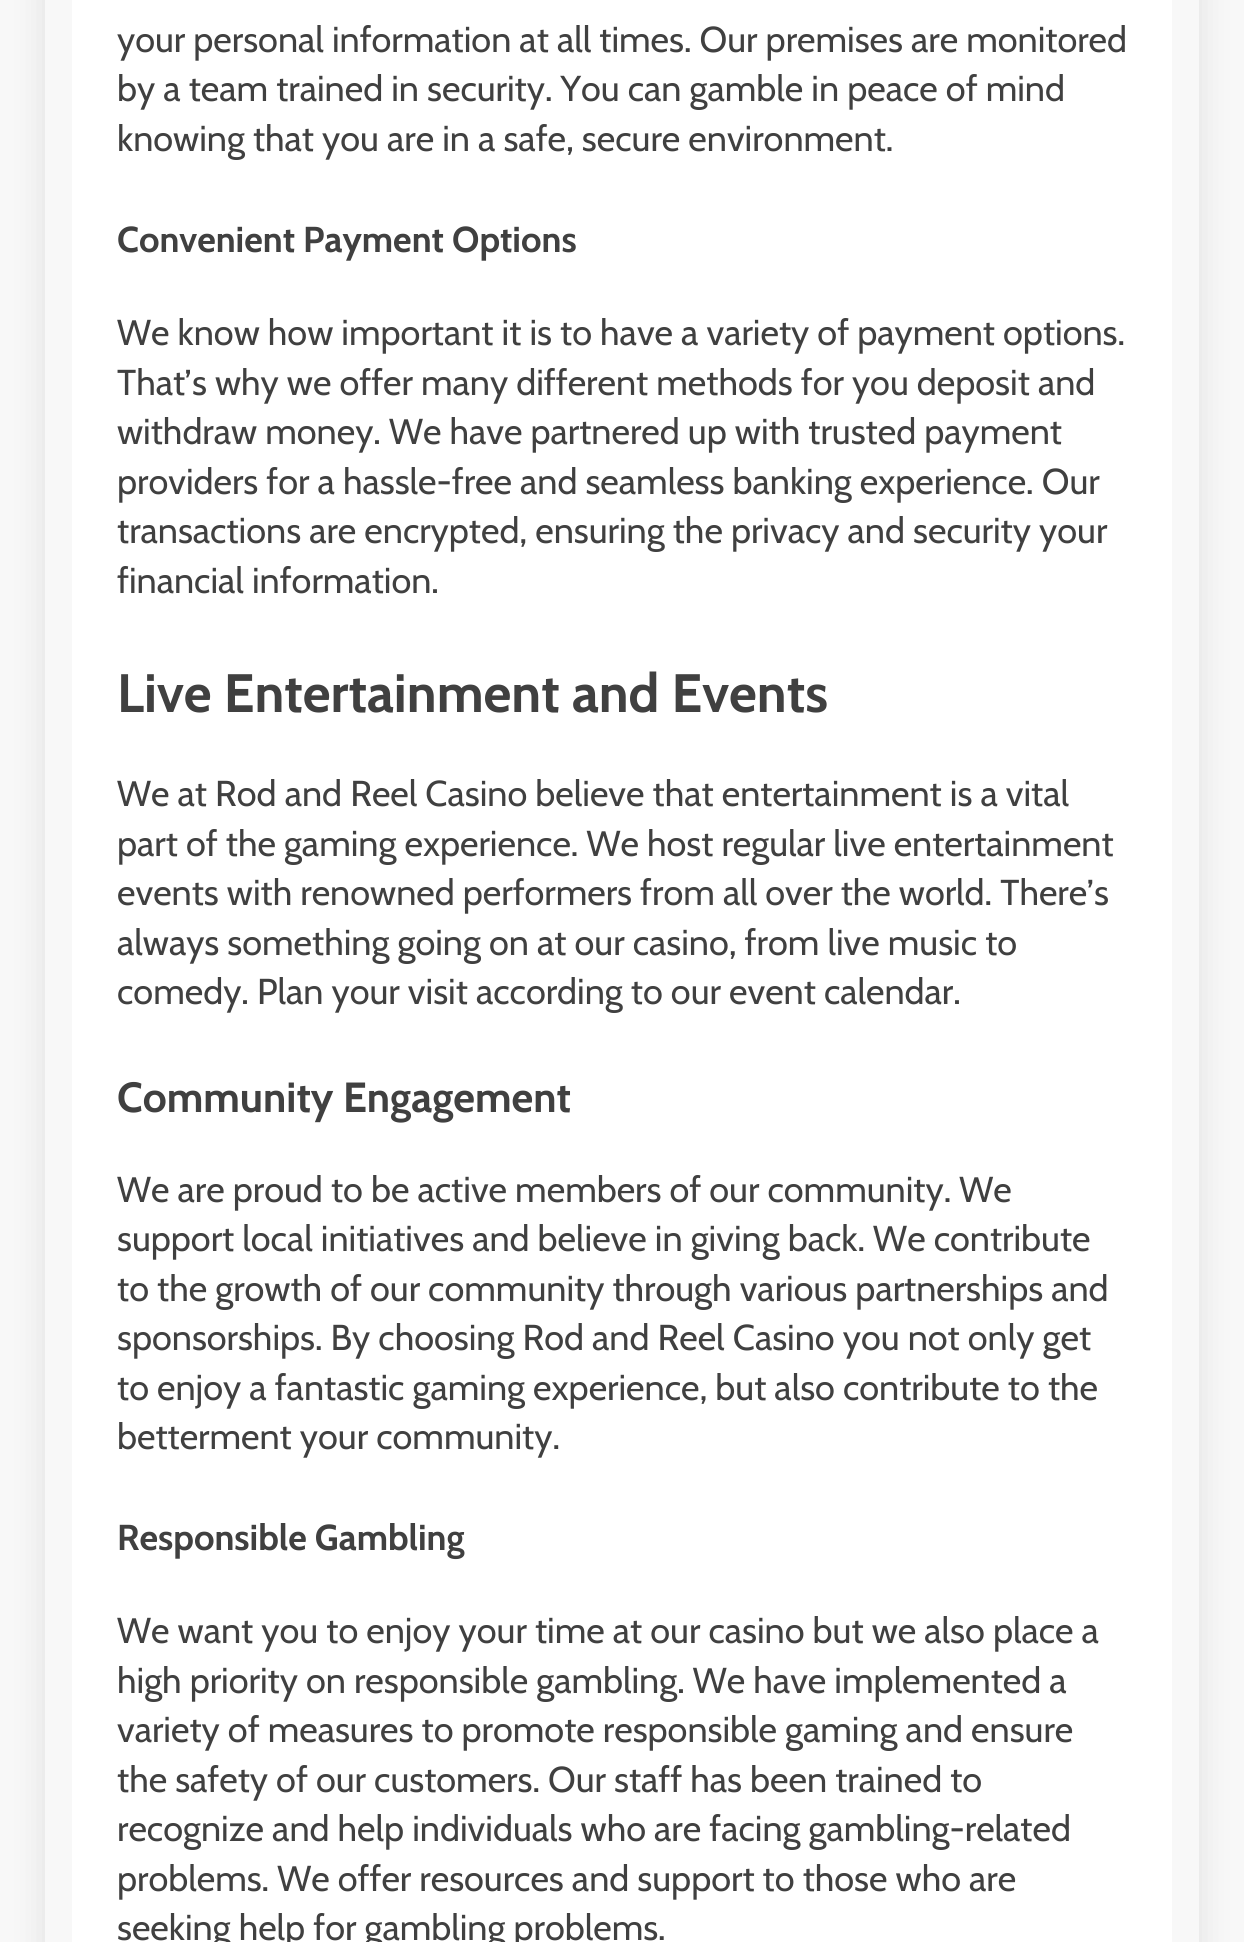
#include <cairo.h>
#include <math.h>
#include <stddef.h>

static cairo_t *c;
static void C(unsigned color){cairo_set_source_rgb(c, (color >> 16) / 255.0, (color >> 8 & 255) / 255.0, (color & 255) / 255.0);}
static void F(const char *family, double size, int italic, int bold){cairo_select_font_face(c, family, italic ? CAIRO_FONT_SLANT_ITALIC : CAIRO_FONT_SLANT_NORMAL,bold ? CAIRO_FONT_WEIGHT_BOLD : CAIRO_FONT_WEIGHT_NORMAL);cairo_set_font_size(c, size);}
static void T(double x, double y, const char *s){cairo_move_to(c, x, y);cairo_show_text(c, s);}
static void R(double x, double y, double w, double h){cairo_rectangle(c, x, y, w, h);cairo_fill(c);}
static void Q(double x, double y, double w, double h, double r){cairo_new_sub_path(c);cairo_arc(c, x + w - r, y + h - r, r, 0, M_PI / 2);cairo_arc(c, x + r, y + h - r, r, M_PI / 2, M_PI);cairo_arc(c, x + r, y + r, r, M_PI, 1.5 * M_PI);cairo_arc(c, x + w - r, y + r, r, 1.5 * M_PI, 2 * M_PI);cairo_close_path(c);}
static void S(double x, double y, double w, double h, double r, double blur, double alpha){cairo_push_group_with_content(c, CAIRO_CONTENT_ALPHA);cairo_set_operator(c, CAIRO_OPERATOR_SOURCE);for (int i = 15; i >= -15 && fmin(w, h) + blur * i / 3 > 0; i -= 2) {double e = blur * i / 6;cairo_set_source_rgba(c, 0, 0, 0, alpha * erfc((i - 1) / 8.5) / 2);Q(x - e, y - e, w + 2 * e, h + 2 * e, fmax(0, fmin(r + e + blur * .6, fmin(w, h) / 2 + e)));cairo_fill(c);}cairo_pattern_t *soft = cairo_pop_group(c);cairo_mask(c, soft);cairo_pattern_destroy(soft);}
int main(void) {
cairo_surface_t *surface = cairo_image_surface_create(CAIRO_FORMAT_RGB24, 1244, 1942);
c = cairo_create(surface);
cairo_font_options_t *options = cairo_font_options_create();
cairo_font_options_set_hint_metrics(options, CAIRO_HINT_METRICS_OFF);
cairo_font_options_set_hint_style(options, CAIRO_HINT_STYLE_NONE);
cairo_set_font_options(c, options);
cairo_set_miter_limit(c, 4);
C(0xf8f8f8);
cairo_paint(c);
cairo_save(c);
cairo_set_fill_rule(c,CAIRO_FILL_RULE_EVEN_ODD);
cairo_new_path(c);
cairo_move_to(c,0,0);
cairo_line_to(c,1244,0);
cairo_line_to(c,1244,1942);
cairo_line_to(c,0,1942);
cairo_close_path(c);
cairo_move_to(c,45,-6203);
cairo_line_to(c,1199,-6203);
cairo_line_to(c,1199,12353);
cairo_line_to(c,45,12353);
cairo_close_path(c);
cairo_clip(c);
C(0x000000);
S(45,-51,1154,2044,0,17,.1);
cairo_restore(c);
C(0xffffff);
R(72,0,1100,1942);
F("Cabin",36,0,0);
C(0x404040);
T(117,52,"your personal information at all times. Our premises are monitored");
T(117,101,"by a team trained in security. You can gamble in peace of mind");
T(117,151,"knowing that you are in a safe, secure environment.");
F("Cabin",36,0,1);
T(117,252,"Convenient Payment Options");
F("Cabin",36,0,0);
T(117,345,"We know how important it is to have a variety of payment options.");
T(117,395,"That’s why we offer many different methods for you deposit and");
T(117,444,"withdraw money. We have partnered up with trusted payment");
T(117,494,"providers for a hassle-free and seamless banking experience. Our");
T(117,543,"transactions are encrypted, ensuring the privacy and security your");
T(117,593,"financial information.");
F("Cabin",54,0,1);
T(117,712,"Live Entertainment and Events");
F("Cabin",36,0,0);
T(117,806,"We at Rod and Reel Casino believe that entertainment is a vital");
T(117,856,"part of the gaming experience. We host regular live entertainment");
T(117,905,"events with renowned performers from all over the world. There’s");
T(117,955,"always something going on at our casino, from live music to");
T(117,1004,"comedy. Plan your visit according to our event calendar.");
F("Cabin",42.1,0,1);
T(117,1112,"Community Engagement");
F("Cabin",36,0,0);
T(117,1202,"We are proud to be active members of our community. We");
T(117,1251,"support local initiatives and believe in giving back. We contribute");
T(117,1301,"to the growth of our community through various partnerships and");
T(117,1350,"sponsorships. By choosing Rod and Reel Casino you not only get");
T(117,1400,"to enjoy a fantastic gaming experience, but also contribute to the");
T(117,1449,"betterment your community.");
F("Cabin",36,0,1);
T(117,1550,"Responsible Gambling");
F("Cabin",36,0,0);
T(117,1643,"We want you to enjoy your time at our casino but we also place a");
T(117,1693,"high priority on responsible gambling. We have implemented a");
T(117,1742,"variety of measures to promote responsible gaming and ensure");
T(117,1792,"the safety of our customers. Our staff has been trained to");
T(117,1841,"recognize and help individuals who are facing gambling-related");
T(117,1891,"problems. We offer resources and support to those who are");
T(117,1940,"seeking help for gambling problems.");
cairo_surface_write_to_png(surface, "o.png");
cairo_font_options_destroy(options);
cairo_destroy(c);
cairo_surface_destroy(surface);
return 0;
}
